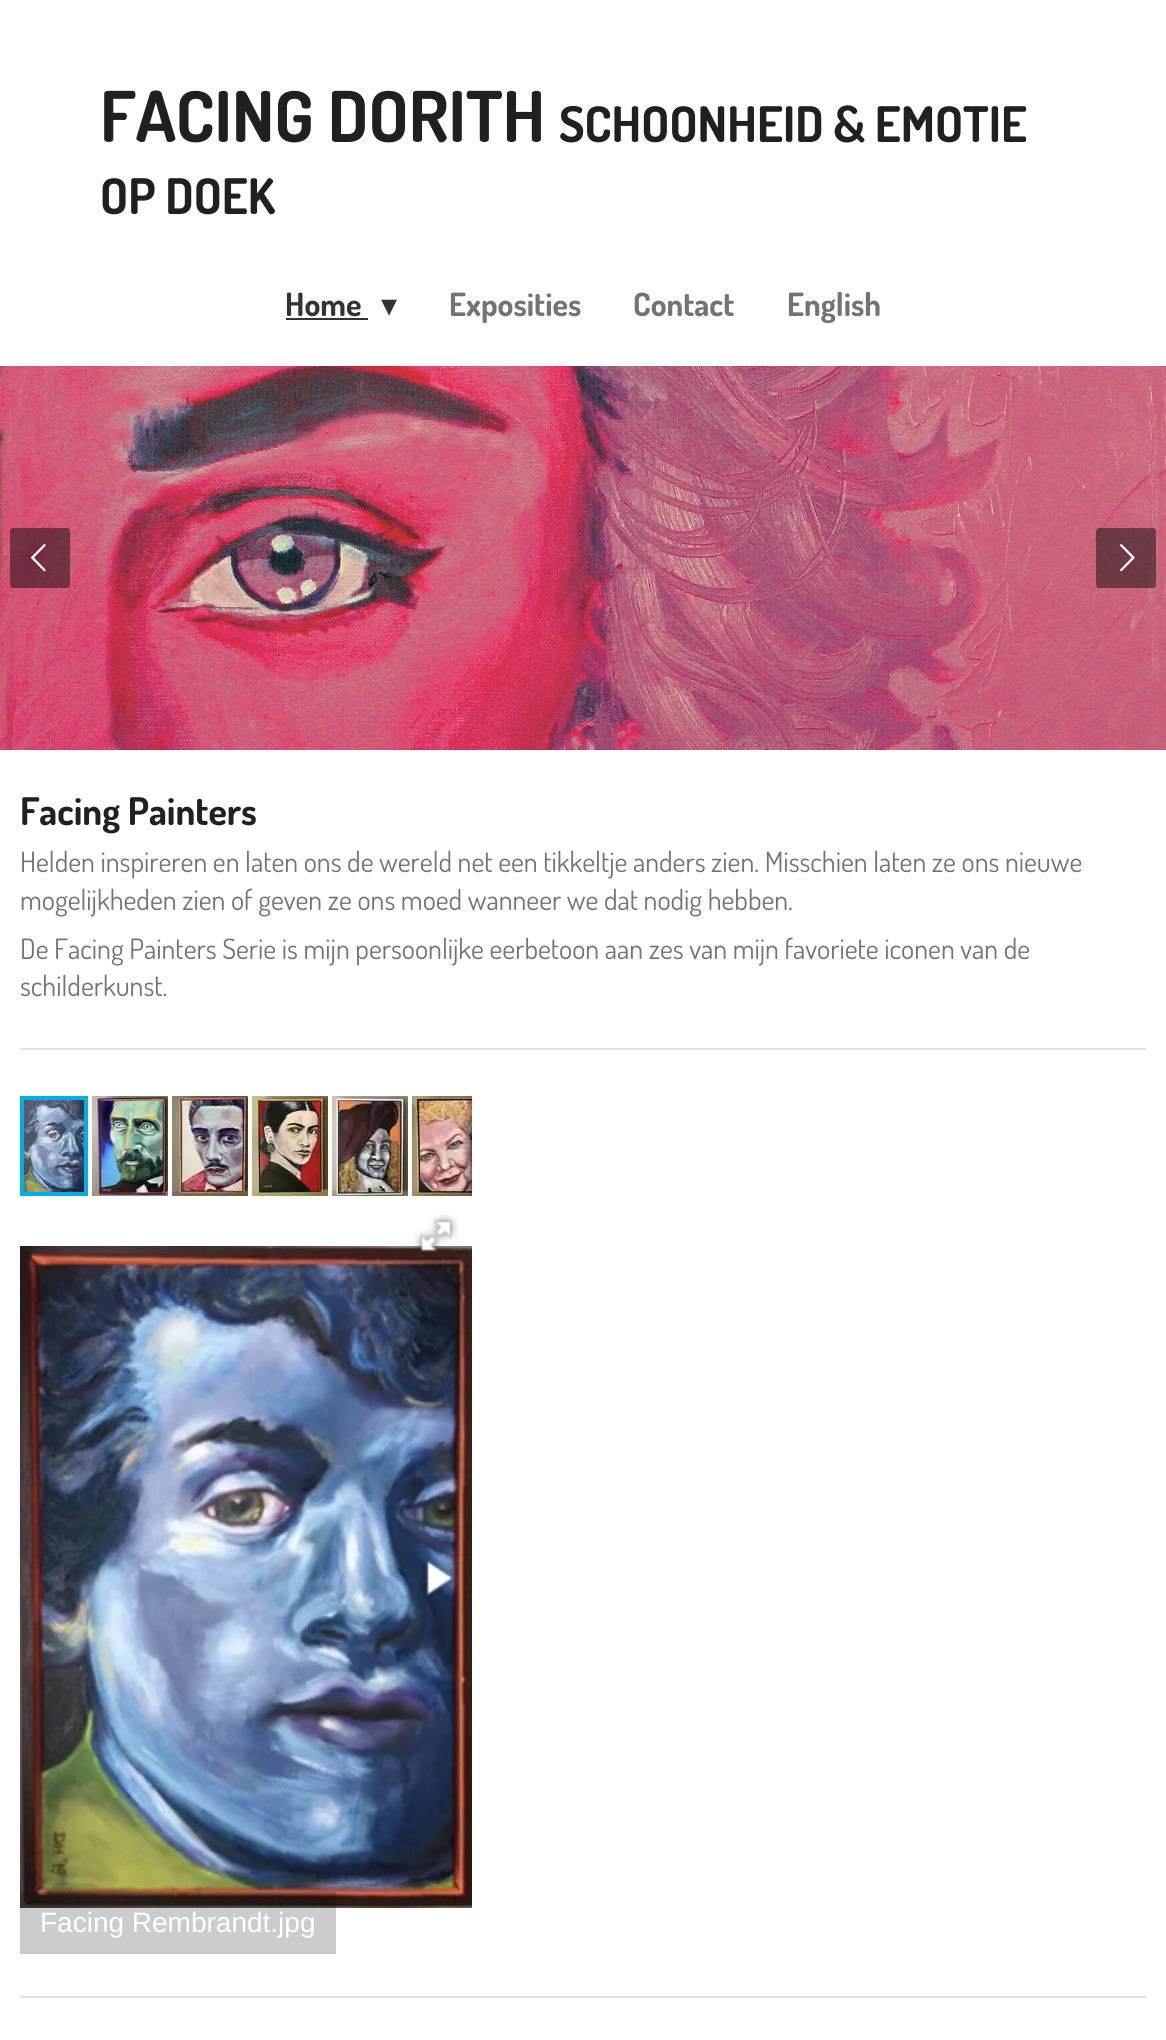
#include <cairo.h>
#include <math.h>
#include <stddef.h>

static cairo_t *c;
static void C(unsigned color){cairo_set_source_rgb(c, (color >> 16) / 255.0, (color >> 8 & 255) / 255.0, (color & 255) / 255.0);}
static void F(const char *family, double size, int italic, int bold){cairo_select_font_face(c, family, italic ? CAIRO_FONT_SLANT_ITALIC : CAIRO_FONT_SLANT_NORMAL,bold ? CAIRO_FONT_WEIGHT_BOLD : CAIRO_FONT_WEIGHT_NORMAL);cairo_set_font_size(c, size);}
static void T(double x, double y, const char *s){cairo_move_to(c, x, y);cairo_show_text(c, s);}
static void R(double x, double y, double w, double h){cairo_rectangle(c, x, y, w, h);cairo_fill(c);}
static void Q(double x, double y, double w, double h, double r){cairo_new_sub_path(c);cairo_arc(c, x + w - r, y + h - r, r, 0, M_PI / 2);cairo_arc(c, x + r, y + h - r, r, M_PI / 2, M_PI);cairo_arc(c, x + r, y + r, r, M_PI, 1.5 * M_PI);cairo_arc(c, x + w - r, y + r, r, 1.5 * M_PI, 2 * M_PI);cairo_close_path(c);}
static void I(const char *path, double x, double y, double w, double h){cairo_surface_t *image = cairo_image_surface_create_from_png(path);cairo_save(c);cairo_set_source_surface(c, image, x, y);cairo_rectangle(c, x, y, w, h);cairo_fill(c);cairo_restore(c);cairo_surface_destroy(image);}
int main(void) {
cairo_surface_t *surface = cairo_image_surface_create(CAIRO_FORMAT_RGB24, 1166, 2040);
c = cairo_create(surface);
cairo_font_options_t *options = cairo_font_options_create();
cairo_font_options_set_hint_metrics(options, CAIRO_HINT_METRICS_OFF);
cairo_font_options_set_hint_style(options, CAIRO_HINT_STYLE_NONE);
cairo_set_font_options(c, options);
cairo_set_miter_limit(c, 4);
cairo_pattern_t *gradient;
C(0xffffff);
cairo_paint(c);
F("Dosis",70,0,1);
C(0x202020);
T(100,142,"FACING DORITH");
F("Dosis",49,0,1);
T(559,142,"SCHOONHEID & EMOTIE");
T(100,214,"OP DOEK");
F("Dosis",32,0,1);
C(0x333333);
T(285,316,"Home");
R(286,318,82,2);
F("DejaVu Sans",32,0,0);
T(381,316,"▾");
F("Dosis",32,0,1);
C(0x737373);
T(449,316,"Exposities");
T(633,316,"Contact");
T(787,316,"English");
I("1.png",0,366,1166,384);
cairo_set_source_rgba(c,0.059,0.059,0.059,0.5);
Q(10,528,60,60,3);
cairo_fill(c);
I("2.png",31,544,15,28);
Q(1096,528,60,60,3);
cairo_fill(c);
I("3.png",1120,544,15,28);
F("Dosis",38,0,1);
C(0x202020);
T(20,825,"Facing Painters");
F("Dosis",28,0,0);
C(0x737373);
T(20,872,"Helden inspireren en laten ons de wereld net een tikkeltje anders zien. Misschien laten ze ons nieuwe");
T(20,910,"mogelijkheden zien of geven ze ons moed wanneer we dat nodig hebben.");
T(20,959,"De Facing Painters Serie is mijn persoonlijke eerbetoon aan zes van mijn favoriete iconen van de");
T(20,996,"schilderkunst.");
C(0xe3e3e3);
R(20,1048,1126,2);
I("8.png",412,1096,60,100);
gradient = cairo_pattern_create_radial(0,0,0,0,0,1);
cairo_pattern_set_matrix(gradient, &(cairo_matrix_t){1.0 / 10, 0, 0, 1.0 / 54, -1.0 * 472 / 10, -1.0 * 1146 / 54});
cairo_pattern_add_color_stop_rgba(gradient,0,0,0,0,.4);
cairo_pattern_add_color_stop_rgba(gradient,1,0,0,0,0);
cairo_set_source(c,gradient);
cairo_pattern_destroy(gradient);
R(463,1095,9,102);
gradient = cairo_pattern_create_linear(471,1092,471,1200);
cairo_pattern_add_color_stop_rgba(gradient,0,0,0,0,0);
cairo_pattern_add_color_stop_rgba(gradient,.25,0,0,0,.2);
cairo_pattern_add_color_stop_rgba(gradient,.75,0,0,0,.3);
cairo_pattern_add_color_stop_rgba(gradient,1,0,0,0,0);
cairo_set_source(c,gradient);
cairo_pattern_destroy(gradient);
R(470,1092,2,108);
I("9.png",24,1100,60,92);
cairo_rectangle(c,22,1098,64,96);
C(0x00afea);
cairo_set_line_width(c,4);
cairo_stroke(c);
I("4.png",92,1096,76,100);
I("5.png",172,1096,76,100);
I("6.png",252,1096,76,100);
I("7.png",332,1096,76,100);
I("13.png",20,1246,452,662);
I("10.png",414,1214,44,41);
I("11.png",40,1562,25,32);
I("12.png",421,1557,34,40);
cairo_set_source_rgba(c,0,0,0,0.2);
R(20,1892,316,62);
F("Liberation Sans",28,0,0);
C(0xffffff);
T(40,1932,"Facing Rembrandt.jpg");
C(0xe3e3e3);
R(20,1996,1126,2);
cairo_surface_write_to_png(surface, "o.png");
cairo_font_options_destroy(options);
cairo_destroy(c);
cairo_surface_destroy(surface);
return 0;
}
